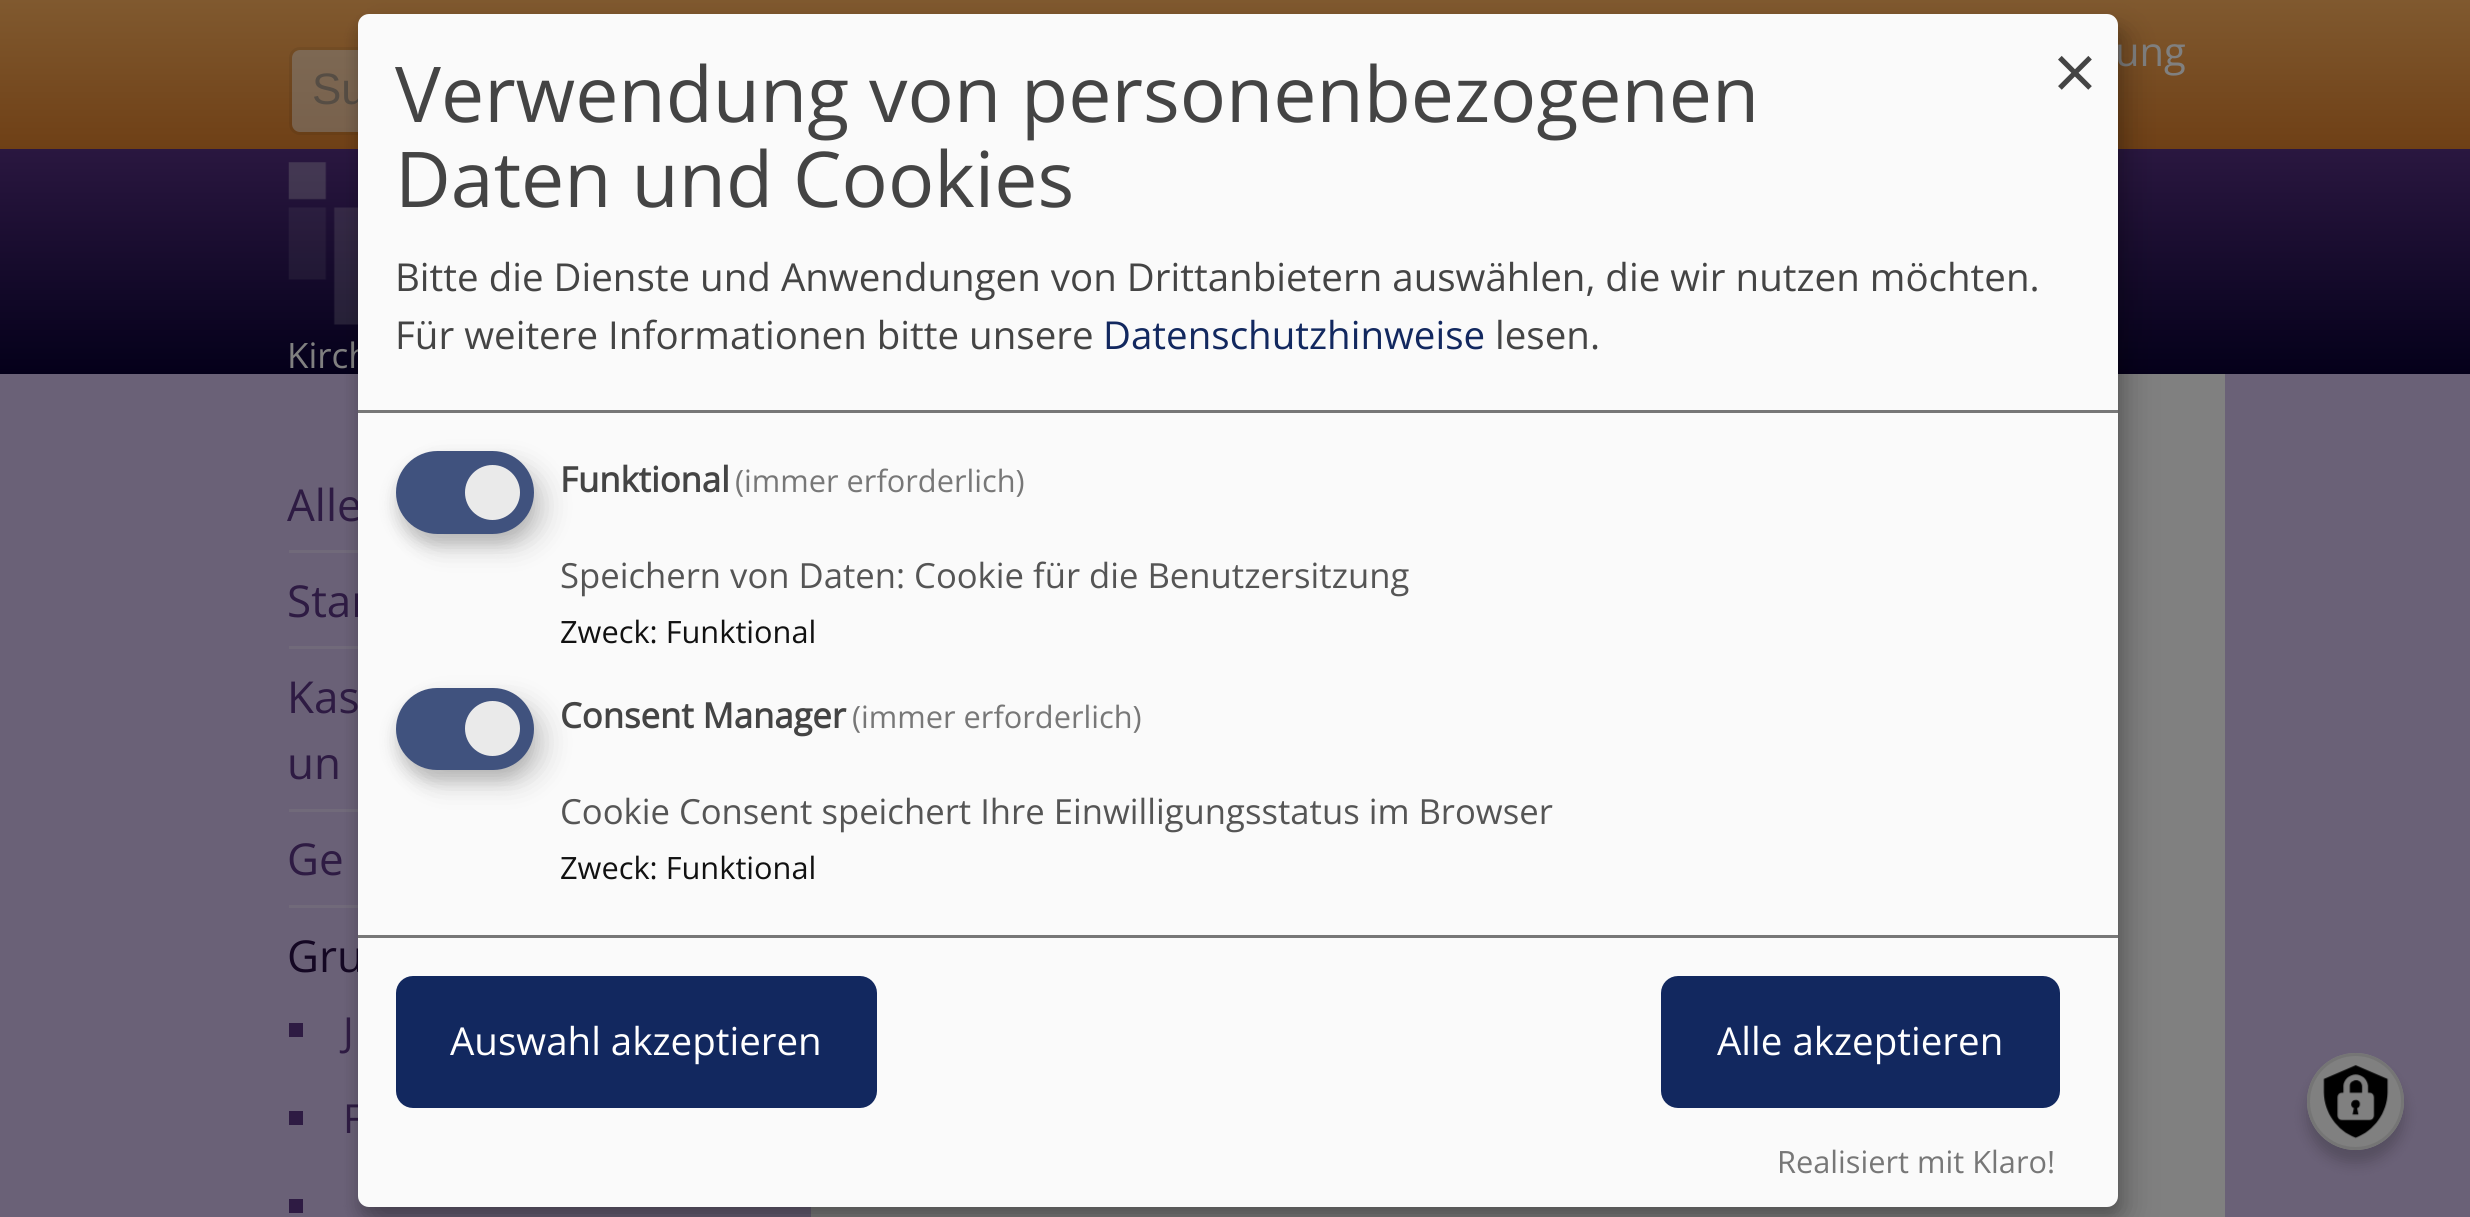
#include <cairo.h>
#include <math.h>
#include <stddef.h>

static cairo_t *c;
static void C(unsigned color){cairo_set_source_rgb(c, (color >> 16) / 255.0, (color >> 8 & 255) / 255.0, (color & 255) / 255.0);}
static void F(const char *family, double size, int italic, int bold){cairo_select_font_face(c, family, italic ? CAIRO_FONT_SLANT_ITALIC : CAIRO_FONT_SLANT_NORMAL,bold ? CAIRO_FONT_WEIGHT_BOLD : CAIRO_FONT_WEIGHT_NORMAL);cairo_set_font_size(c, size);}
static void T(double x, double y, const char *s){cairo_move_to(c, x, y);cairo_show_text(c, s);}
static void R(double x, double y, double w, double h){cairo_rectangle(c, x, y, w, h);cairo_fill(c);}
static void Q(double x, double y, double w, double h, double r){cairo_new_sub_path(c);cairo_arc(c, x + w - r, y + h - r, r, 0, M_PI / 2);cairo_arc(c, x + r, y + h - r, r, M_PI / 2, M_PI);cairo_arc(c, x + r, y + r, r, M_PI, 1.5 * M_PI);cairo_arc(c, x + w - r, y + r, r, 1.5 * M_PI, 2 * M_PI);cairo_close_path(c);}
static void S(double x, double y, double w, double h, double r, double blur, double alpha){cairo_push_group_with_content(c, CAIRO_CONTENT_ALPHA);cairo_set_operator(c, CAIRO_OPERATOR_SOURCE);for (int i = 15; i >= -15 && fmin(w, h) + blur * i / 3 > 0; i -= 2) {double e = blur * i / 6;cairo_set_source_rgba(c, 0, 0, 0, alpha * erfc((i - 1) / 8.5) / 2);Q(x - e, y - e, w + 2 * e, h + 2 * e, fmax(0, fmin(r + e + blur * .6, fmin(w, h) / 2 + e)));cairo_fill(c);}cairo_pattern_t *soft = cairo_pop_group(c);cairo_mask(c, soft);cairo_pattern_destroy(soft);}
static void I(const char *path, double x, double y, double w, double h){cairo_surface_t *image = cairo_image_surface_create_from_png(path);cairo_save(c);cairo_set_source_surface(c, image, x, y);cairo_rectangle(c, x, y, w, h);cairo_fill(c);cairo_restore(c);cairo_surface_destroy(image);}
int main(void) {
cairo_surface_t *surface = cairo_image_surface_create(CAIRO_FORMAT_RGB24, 2470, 1217);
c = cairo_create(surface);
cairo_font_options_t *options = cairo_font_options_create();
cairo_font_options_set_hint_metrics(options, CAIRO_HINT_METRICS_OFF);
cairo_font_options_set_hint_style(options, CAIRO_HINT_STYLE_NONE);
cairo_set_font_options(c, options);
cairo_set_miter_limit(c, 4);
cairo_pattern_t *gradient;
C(0x6a6177);
cairo_paint(c);
gradient = cairo_pattern_create_linear(1236,0,1236,149);
cairo_pattern_add_color_stop_rgba(gradient,0,0.502,0.349,0.184,1);
cairo_pattern_add_color_stop_rgba(gradient,1,0.435,0.251,0.086,1);
cairo_set_source(c,gradient);
cairo_pattern_destroy(gradient);
R(0,0,2470,149);
F("Open Sans",40,0,0);
C(0x808080);
T(2115,66,"ung");
cairo_set_source_rgba(c,0.502,0.502,0.502,0.5);
Q(292,50,484,82,8);
cairo_fill(c);
Q(290.5,48.5,486,85,9.5);
cairo_set_source_rgba(c,0,0,0,0.07);
cairo_set_line_width(c,3);
cairo_stroke(c);
F("Liberation Sans",44,0,0);
C(0x564d44);
T(312,104,"Su");
gradient = cairo_pattern_create_linear(1236,148,1236,374);
cairo_pattern_add_color_stop_rgba(gradient,0,0.165,0.09,0.251,1);
cairo_pattern_add_color_stop_rgba(gradient,1,0.016,0,0.102,1);
cairo_set_source(c,gradient);
cairo_pattern_destroy(gradient);
R(0,149,2470,225);
I("1.png",288,162,70,163);
F("Open Sans",35,0,0);
C(0x808080);
T(287,368,"Kirch");
C(0x716a7a);
R(289,550,69,3);
F("Open Sans",44,0,0);
C(0x2e1b43);
T(287,521,"Alle");
C(0x716a7a);
R(289,646,69,3);
C(0x2e1b43);
T(287,617,"Star");
C(0x716a7a);
R(289,809,69,3);
C(0x2e1b43);
T(287,713,"Kas");
T(287,779,"un");
C(0x716a7a);
R(289,905,69,3);
C(0x2e1b43);
T(287,875,"Ge");
C(0x140723);
T(287,972,"Gru");
C(0x2e1b43);
R(289,1023,14,14);
F("Open Sans",40,0,0);
T(343,1046,"J");
R(289,1111,14,14);
T(343,1133,"F");
R(289,1199,14,14);
C(0x808080);
R(811,374,1414,843);
C(0x000000);
S(371,28,1760,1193,11,14,.19);
S(358,25,1760,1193,11,8,.2);
C(0xfafafa);
Q(358,14,1760,1193,11);
cairo_fill(c);
C(0x777777);
R(358,410,1760,3);
F("Open Sans",77,0,0);
C(0x444444);
T(395,122,"Verwendung von personenbezogenen");
T(395,207,"Daten und Cookies");
F("Open Sans",38.5,0,0);
T(395,291,"Bitte die Dienste und Anwendungen von Drittanbietern auswählen, die wir nutzen möchten.");
T(395,349,"Für weitere Informationen bitte unsere");
C(0x12285f);
T(1103,349,"Datenschutzhinweise");
C(0x444444);
T(1495,349,"lesen.");
F("Open Sans",77,0,0);
T(2053,100,"×");
C(0x000000);
S(410,465,137,82,41,14,.15);
C(0x323232);
S(396,462,138,83,41.5,8,.2);
C(0x40527e);
Q(396,451,138,83,41.5);
cairo_fill(c);
C(0xeaeaea);
cairo_arc(c,492.5,492.5,27.5,0,2 * M_PI);
cairo_fill(c);
F("Open Sans",34.65,0,1);
C(0x444444);
T(560,492,"Funktional");
F("Open Sans",30.75,0,0);
C(0x777777);
T(735,492,"(immer erforderlich)");
F("Open Sans",34.65,0,0);
C(0x555555);
T(560,588,"Speichern von Daten: Cookie für die Benutzersitzung");
F("Open Sans",30.75,0,0);
C(0x111111);
T(560,643,"Zweck: Funktional");
C(0x000000);
S(410,701,137,83,41.5,14,.15);
C(0x323232);
S(396,699,138,82,41,8,.2);
C(0x40527e);
Q(396,688,138,82,41);
cairo_fill(c);
C(0xeaeaea);
cairo_arc(c,492.5,728.5,27.5,0,2 * M_PI);
cairo_fill(c);
F("Open Sans",34.65,0,1);
C(0x444444);
T(560,728,"Consent Manager");
F("Open Sans",30.75,0,0);
C(0x777777);
T(852,728,"(immer erforderlich)");
F("Open Sans",34.65,0,0);
C(0x555555);
T(560,824,"Cookie Consent speichert Ihre Einwilligungsstatus im Browser");
F("Open Sans",30.75,0,0);
C(0x111111);
T(560,879,"Zweck: Funktional");
C(0x777777);
R(358,935,1760,3);
C(0x12285f);
Q(400,980,473,124,13);
cairo_fill_preserve(c);
cairo_set_line_width(c,8);
cairo_stroke(c);
F("Open Sans",38.5,0,0);
C(0xffffff);
T(450,1055,"Auswahl akzeptieren");
C(0x12285f);
Q(1665,980,391,124,13);
cairo_fill_preserve(c);
cairo_stroke(c);
C(0xffffff);
T(1717,1055,"Alle akzeptieren");
F("Open Sans",30.75,0,0);
C(0x777777);
T(1777,1173,"Realisiert mit Klaro!");
C(0x000000);
S(2307,1067,97,96,48,7,.2);
C(0x808080);
cairo_arc(c,2355.5,1101.5,48.5,0,2 * M_PI);
cairo_fill(c);
I("2.png",2323,1065,66,74);
cairo_arc(c,2355.5,1101.5,47,0,2 * M_PI);
C(0x757575);
cairo_set_line_width(c,3);
cairo_stroke(c);
cairo_surface_write_to_png(surface, "o.png");
cairo_font_options_destroy(options);
cairo_destroy(c);
cairo_surface_destroy(surface);
return 0;
}
